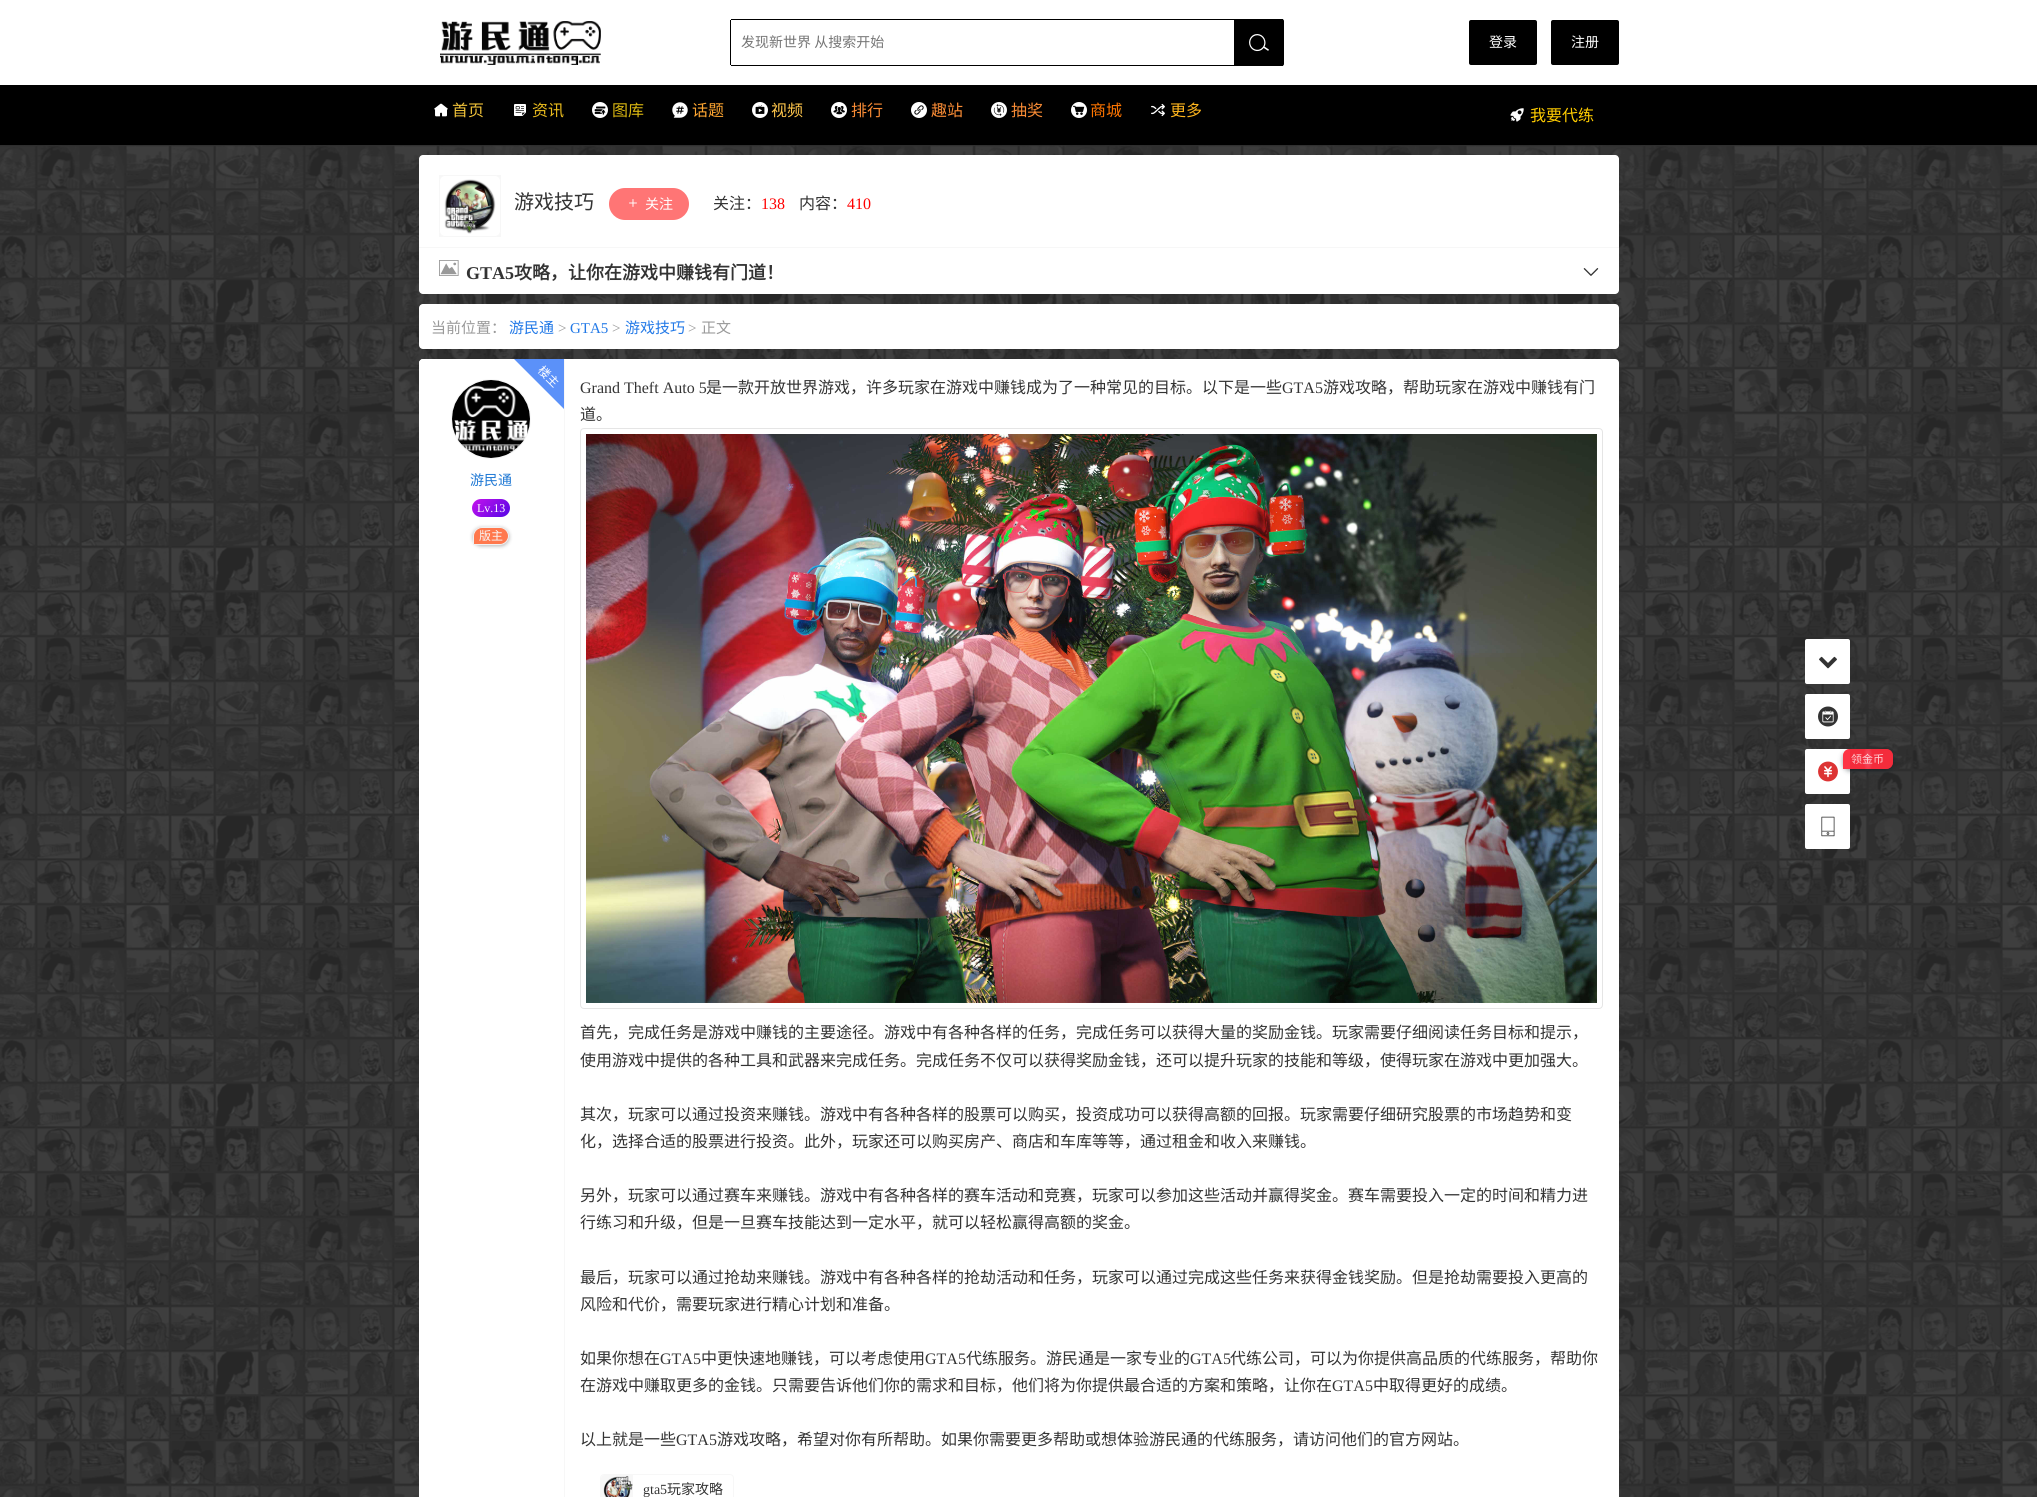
#include <cairo.h>
#include <math.h>
#include <stddef.h>

static cairo_t *c;
static void C(unsigned color){cairo_set_source_rgb(c, (color >> 16) / 255.0, (color >> 8 & 255) / 255.0, (color & 255) / 255.0);}
static void F(const char *family, double size, int italic, int bold){cairo_select_font_face(c, family, italic ? CAIRO_FONT_SLANT_ITALIC : CAIRO_FONT_SLANT_NORMAL,bold ? CAIRO_FONT_WEIGHT_BOLD : CAIRO_FONT_WEIGHT_NORMAL);cairo_set_font_size(c, size);}
static void T(double x, double y, const char *s){cairo_move_to(c, x, y);cairo_show_text(c, s);}
static void R(double x, double y, double w, double h){cairo_rectangle(c, x, y, w, h);cairo_fill(c);}
static void Q(double x, double y, double w, double h, double r){cairo_new_sub_path(c);cairo_arc(c, x + w - r, y + h - r, r, 0, M_PI / 2);cairo_arc(c, x + r, y + h - r, r, M_PI / 2, M_PI);cairo_arc(c, x + r, y + r, r, M_PI, 1.5 * M_PI);cairo_arc(c, x + w - r, y + r, r, 1.5 * M_PI, 2 * M_PI);cairo_close_path(c);}
static void S(double x, double y, double w, double h, double r, double blur, double alpha){cairo_push_group_with_content(c, CAIRO_CONTENT_ALPHA);cairo_set_operator(c, CAIRO_OPERATOR_SOURCE);for (int i = 15; i >= -15 && fmin(w, h) + blur * i / 3 > 0; i -= 2) {double e = blur * i / 6;cairo_set_source_rgba(c, 0, 0, 0, alpha * erfc((i - 1) / 8.5) / 2);Q(x - e, y - e, w + 2 * e, h + 2 * e, fmax(0, fmin(r + e + blur * .6, fmin(w, h) / 2 + e)));cairo_fill(c);}cairo_pattern_t *soft = cairo_pop_group(c);cairo_mask(c, soft);cairo_pattern_destroy(soft);}
static void I(const char *path, double x, double y, double w, double h){cairo_surface_t *image = cairo_image_surface_create_from_png(path);cairo_save(c);cairo_set_source_surface(c, image, x, y);cairo_rectangle(c, x, y, w, h);cairo_fill(c);cairo_restore(c);cairo_surface_destroy(image);}
int main(void) {
cairo_surface_t *surface = cairo_image_surface_create(CAIRO_FORMAT_RGB24, 2037, 1497);
c = cairo_create(surface);
cairo_font_options_t *options = cairo_font_options_create();
cairo_font_options_set_hint_metrics(options, CAIRO_HINT_METRICS_OFF);
cairo_font_options_set_hint_style(options, CAIRO_HINT_STYLE_NONE);
cairo_set_font_options(c, options);
cairo_set_miter_limit(c, 4);
cairo_pattern_t *gradient;
C(0xffffff);
cairo_paint(c);
I("1.png",0,145,2037,1352);
I("2.png",440,21,161,44);
C(0x000000);
R(731,19,503,1);
R(731,65,503,1);
R(730,20,1,45);
F("Noto Sans CJK SC",14,0,0);
C(0x757575);
T(741,47,"发现新世界 从搜索开始");
C(0x000000);
cairo_new_path(c);
cairo_move_to(c,1234,19);
cairo_line_to(c,1282,19);
cairo_curve_to(c,1283,19,1284,20,1284,21);
cairo_line_to(c,1284,64);
cairo_curve_to(c,1284,65,1283,66,1282,66);
cairo_line_to(c,1234,66);
cairo_close_path(c);
cairo_fill(c);
R(1282,19,1,1);
R(1282,65,1,1);
I("3.png",1249,34,20,18);
Q(1469,20,68,45,2);
cairo_fill(c);
C(0xffffff);
T(1489,47,"登录");
C(0x000000);
Q(1551,20,68,45,2);
cairo_fill(c);
C(0xffffff);
T(1571,47,"注册");
C(0x000000);
R(0,85,2037,60);
I("4.png",434,103,14,14);
F("Noto Sans CJK SC",16,0,0);
C(0xf0c239);
T(452,116,"首页");
I("5.png",514,104,12,12);
C(0xe9bb1d);
T(532,116,"资讯");
I("6.png",592,102,16,16);
C(0xd9b611);
T(612,116,"图库");
I("7.png",672,102,16,16);
C(0xffa631);
T(692,116,"话题");
I("8.png",752,102,16,16);
C(0xffc64b);
T(771,116,"视频");
I("9.png",831,102,16,16);
C(0xfa8c35);
T(851,116,"排行");
I("10.png",911,102,16,16);
T(931,116,"趣站");
I("11.png",991,102,16,16);
T(1011,116,"抽奖");
I("12.png",1071,102,16,16);
C(0xff7500);
T(1090,116,"商城");
I("13.png",1151,103,14,14);
C(0xffb61e);
T(1170,116,"更多");
I("14.png",1510,108,14,14);
C(0xffcc00);
T(1530,121,"我要代练");
C(0xffffff);
Q(419,155,1200,139,4);
cairo_fill(c);
C(0xf7f7f7);
R(419,247,1200,1);
R(439,175,62,62);
C(0xffffff);
Q(439.5,175.5,61,61,5.5);
cairo_fill_preserve(c);
C(0xf7f7f7);
cairo_set_line_width(c,1);
cairo_stroke(c);
I("15.png",444,179,52,55);
F("Noto Sans CJK SC",20,0,0);
C(0x333333);
T(514,209,"游戏技巧");
C(0xff7575);
Q(609,188,80,32,16);
cairo_fill(c);
I("16.png",629,199,8,8);
F("Noto Sans CJK SC",14,0,0);
C(0xffffff);
T(645,209,"关注");
F("Noto Sans CJK SC",16,0,0);
C(0x333333);
T(713,209,"关注：");
F("Liberation Serif",16,0,0);
C(0xff0000);
T(761,209,"138");
F("Noto Sans CJK SC",16,0,0);
C(0x333333);
T(799,209,"内容：");
F("Liberation Serif",16,0,0);
C(0xff0000);
T(847,209,"410");
I("17.png",439,260,20,16);
F("Liberation Serif",18,0,1);
C(0x333333);
T(466,279,"GTA5");
F("Noto Sans CJK SC",18,0,1);
T(514,279,"攻略，让你在游戏中赚钱有门道！");
I("18.png",1583,268,16,8);
C(0xffffff);
Q(419,304,1200,45,4);
cairo_fill(c);
F("Noto Sans CJK SC",15,0,0);
C(0x999999);
T(431,333,"当前位置：");
C(0x2279e7);
T(509,333,"游民通");
F("Liberation Serif",15,0,0);
C(0x999999);
T(558,333,">");
C(0x2279e7);
T(570,333,"GTA5");
C(0x999999);
T(612,333,">");
F("Noto Sans CJK SC",15,0,0);
C(0x2279e7);
T(625,333,"游戏技巧");
F("Liberation Serif",15,0,0);
C(0x999999);
T(688,333,">");
F("Noto Sans CJK SC",15,0,0);
T(701,333,"正文");
C(0xffffff);
Q(419,359,1200,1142,4);
cairo_fill(c);
cairo_new_path(c);
cairo_move_to(c,423,359);
cairo_line_to(c,565,359);
cairo_line_to(c,565,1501);
cairo_line_to(c,423,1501);
cairo_curve_to(c,421,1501,419,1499,419,1497);
cairo_line_to(c,419,363);
cairo_curve_to(c,419,361,421,359,423,359);
cairo_close_path(c);
cairo_fill(c);
C(0xf7f7f7);
R(564,359,1,1138);
cairo_arc(c,491,419,40,0,2 * M_PI);
cairo_fill(c);
I("19.png",452,380,78,78);
C(0x5b91f9);
cairo_new_path(c);
cairo_move_to(c,514,359);
cairo_line_to(c,564,359);
cairo_line_to(c,564,409);
cairo_close_path(c);
cairo_fill(c);
F("Noto Sans CJK SC",12,0,0);
C(0xffffff);
cairo_save(c);
cairo_translate(c,537,371);
cairo_rotate(c,45 * M_PI / 180);
T(0,0,"楼主");
cairo_restore(c);
F("Noto Sans CJK SC",14,0,0);
C(0x1d77d4);
T(470,485,"游民通");
gradient = cairo_pattern_create_linear(477,494,505,522);
cairo_pattern_add_color_stop_rgba(gradient,0,0.773,0.071,0.929,1);
cairo_pattern_add_color_stop_rgba(gradient,1,0.329,0.024,0.898,1);
cairo_set_source(c,gradient);
cairo_pattern_destroy(gradient);
Q(472,499,38,18,9);
cairo_fill(c);
F("Liberation Serif",12,0,0);
C(0xffffff);
T(477,512,"Lv.13");
C(0x000000);
S(473,528,36,18,9,2,.3);
C(0xff784d);
cairo_new_path(c);
cairo_move_to(c,482,527.5);
cairo_line_to(c,500,527.5);
cairo_curve_to(c,504.5,527.5,508.5,531.5,508.5,536);
cairo_curve_to(c,508.5,540.5,504.5,544.5,500,544.5);
cairo_line_to(c,473.5,544.5);
cairo_line_to(c,473.5,536);
cairo_curve_to(c,473.5,531.5,477.5,527.5,482,527.5);
cairo_close_path(c);
cairo_fill_preserve(c);
C(0xf1f1f1);
cairo_stroke(c);
F("Noto Sans CJK SC",12,0,0);
C(0xf8f8f8);
T(479,540,"版主");
F("Liberation Serif",16,0,0);
C(0x333333);
T(580,393,"Grand Theft Auto 5");
F("Noto Sans CJK SC",16,0,0);
T(706,393,"是一款开放世界游戏，许多玩家在游戏中赚钱成为了一种常见的目标。以下是一些");
F("Liberation Serif",16,0,0);
T(1282,393,"GTA5");
F("Noto Sans CJK SC",16,0,0);
T(1323,393,"游戏攻略，帮助玩家在游戏中赚钱有门");
T(580,420,"道。");
Q(580.5,428.5,1022,580,3.5);
C(0xe5e5e5);
cairo_stroke(c);
I("20.png",586,434,1011,569);
C(0x333333);
T(580,1038,"首先，完成任务是游戏中赚钱的主要途径。游戏中有各种各样的任务，完成任务可以获得大量的奖励金钱。玩家需要仔细阅读任务目标和提示，");
T(580,1066,"使用游戏中提供的各种工具和武器来完成任务。完成任务不仅可以获得奖励金钱，还可以提升玩家的技能和等级，使得玩家在游戏中更加强大。");
T(580,1120,"其次，玩家可以通过投资来赚钱。游戏中有各种各样的股票可以购买，投资成功可以获得高额的回报。玩家需要仔细研究股票的市场趋势和变");
T(580,1147,"化，选择合适的股票进行投资。此外，玩家还可以购买房产、商店和车库等等，通过租金和收入来赚钱。");
T(580,1201,"另外，玩家可以通过赛车来赚钱。游戏中有各种各样的赛车活动和竞赛，玩家可以参加这些活动并赢得奖金。赛车需要投入一定的时间和精力进");
T(580,1228,"行练习和升级，但是一旦赛车技能达到一定水平，就可以轻松赢得高额的奖金。");
T(580,1283,"最后，玩家可以通过抢劫来赚钱。游戏中有各种各样的抢劫活动和任务，玩家可以通过完成这些任务来获得金钱奖励。但是抢劫需要投入更高的");
T(580,1310,"风险和代价，需要玩家进行精心计划和准备。");
T(580,1364,"如果你想在");
F("Liberation Serif",16,0,0);
T(660,1364,"GTA5");
F("Noto Sans CJK SC",16,0,0);
T(701,1364,"中更快速地赚钱，可以考虑使用");
F("Liberation Serif",16,0,0);
T(925,1364,"GTA5");
F("Noto Sans CJK SC",16,0,0);
T(966,1364,"代练服务。游民通是一家专业的");
F("Liberation Serif",16,0,0);
T(1190,1364,"GTA5");
F("Noto Sans CJK SC",16,0,0);
T(1230,1364,"代练公司，可以为你提供高品质的代练服务，帮助你");
T(580,1391,"在游戏中赚取更多的金钱。只需要告诉他们你的需求和目标，他们将为你提供最合适的方案和策略，让你在");
F("Liberation Serif",16,0,0);
T(1332,1391,"GTA5");
F("Noto Sans CJK SC",16,0,0);
T(1373,1391,"中取得更好的成绩。");
T(580,1445,"以上就是一些");
F("Liberation Serif",16,0,0);
T(676,1445,"GTA5");
F("Noto Sans CJK SC",16,0,0);
T(717,1445,"游戏攻略，希望对你有所帮助。如果你需要更多帮助或想体验游民通的代练服务，请访问他们的官方网站。");
Q(600.5,1474.5,133,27,3.5);
C(0xf7f7f7);
cairo_stroke(c);
cairo_new_path(c);
cairo_move_to(c,604,1475);
cairo_line_to(c,633,1475);
cairo_line_to(c,633,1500);
cairo_line_to(c,604,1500);
cairo_curve_to(c,602.5,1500,601,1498.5,601,1497);
cairo_line_to(c,601,1478);
cairo_curve_to(c,601,1476.5,602.5,1475,604,1475);
cairo_close_path(c);
cairo_fill(c);
I("21.png",603,1476,30,21);
F("Liberation Serif",14,0,0);
C(0x333333);
T(643,1494,"gta5");
F("Noto Sans CJK SC",14,0,0);
T(667,1494,"玩家攻略");
C(0xffffff);
Q(1805,639,45,45,2);
cairo_fill(c);
I("22.png",1819,656,18,13);
Q(1805,694,45,45,2);
cairo_fill(c);
I("23.png",1818,706,20,21);
Q(1805,749,45,45,2);
cairo_fill(c);
I("24.png",1818,761,20,21);
cairo_save(c);
cairo_set_fill_rule(c,CAIRO_FILL_RULE_EVEN_ODD);
cairo_new_path(c);
cairo_move_to(c,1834,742);
cairo_line_to(c,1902,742);
cairo_line_to(c,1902,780);
cairo_line_to(c,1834,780);
cairo_close_path(c);
cairo_move_to(c,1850,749);
cairo_line_to(c,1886,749);
cairo_curve_to(c,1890,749,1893,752,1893,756);
cairo_line_to(c,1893,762);
cairo_curve_to(c,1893,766,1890,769,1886,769);
cairo_line_to(c,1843,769);
cairo_line_to(c,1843,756);
cairo_curve_to(c,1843,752,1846,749,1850,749);
cairo_close_path(c);
cairo_clip(c);
C(0x061920);
S(1843,751,50,20,7,2.5,.41);
cairo_restore(c);
cairo_set_source_rgba(c,0.988,0.173,0.235,0.8);
cairo_new_path(c);
cairo_move_to(c,1850,749);
cairo_line_to(c,1886,749);
cairo_curve_to(c,1890,749,1893,752,1893,756);
cairo_line_to(c,1893,762);
cairo_curve_to(c,1893,766,1890,769,1886,769);
cairo_line_to(c,1843,769);
cairo_line_to(c,1843,756);
cairo_curve_to(c,1843,752,1846,749,1850,749);
cairo_close_path(c);
cairo_fill(c);
gradient = cairo_pattern_create_radial(0,0,0,0,0,1);
cairo_pattern_set_matrix(gradient, &(cairo_matrix_t){1.0 / 4.5, 0, 0, 1.0 / 16, -1.0 * 1868 / 4.5, -1.0 * 759 / 16});
cairo_pattern_add_color_stop_rgba(gradient,0,0.996,0.341,0.435,.8);
cairo_pattern_add_color_stop_rgba(gradient,1,0.988,0.173,0.235,.8);
cairo_set_source(c,gradient);
cairo_pattern_destroy(gradient);
cairo_new_path(c);
cairo_move_to(c,1850,749);
cairo_line_to(c,1886,749);
cairo_curve_to(c,1890,749,1893,752,1893,756);
cairo_line_to(c,1893,762);
cairo_curve_to(c,1893,766,1890,769,1886,769);
cairo_line_to(c,1843,769);
cairo_line_to(c,1843,756);
cairo_curve_to(c,1843,752,1846,749,1850,749);
cairo_close_path(c);
cairo_fill(c);
F("Noto Sans CJK SC",11,0,0);
C(0xfdd6d9);
T(1851,763,"领金币");
C(0xffffff);
Q(1805,804,45,45,2);
cairo_fill(c);
I("25.png",1821,816,14,21);
cairo_surface_write_to_png(surface, "o.png");
cairo_font_options_destroy(options);
cairo_destroy(c);
cairo_surface_destroy(surface);
return 0;
}
